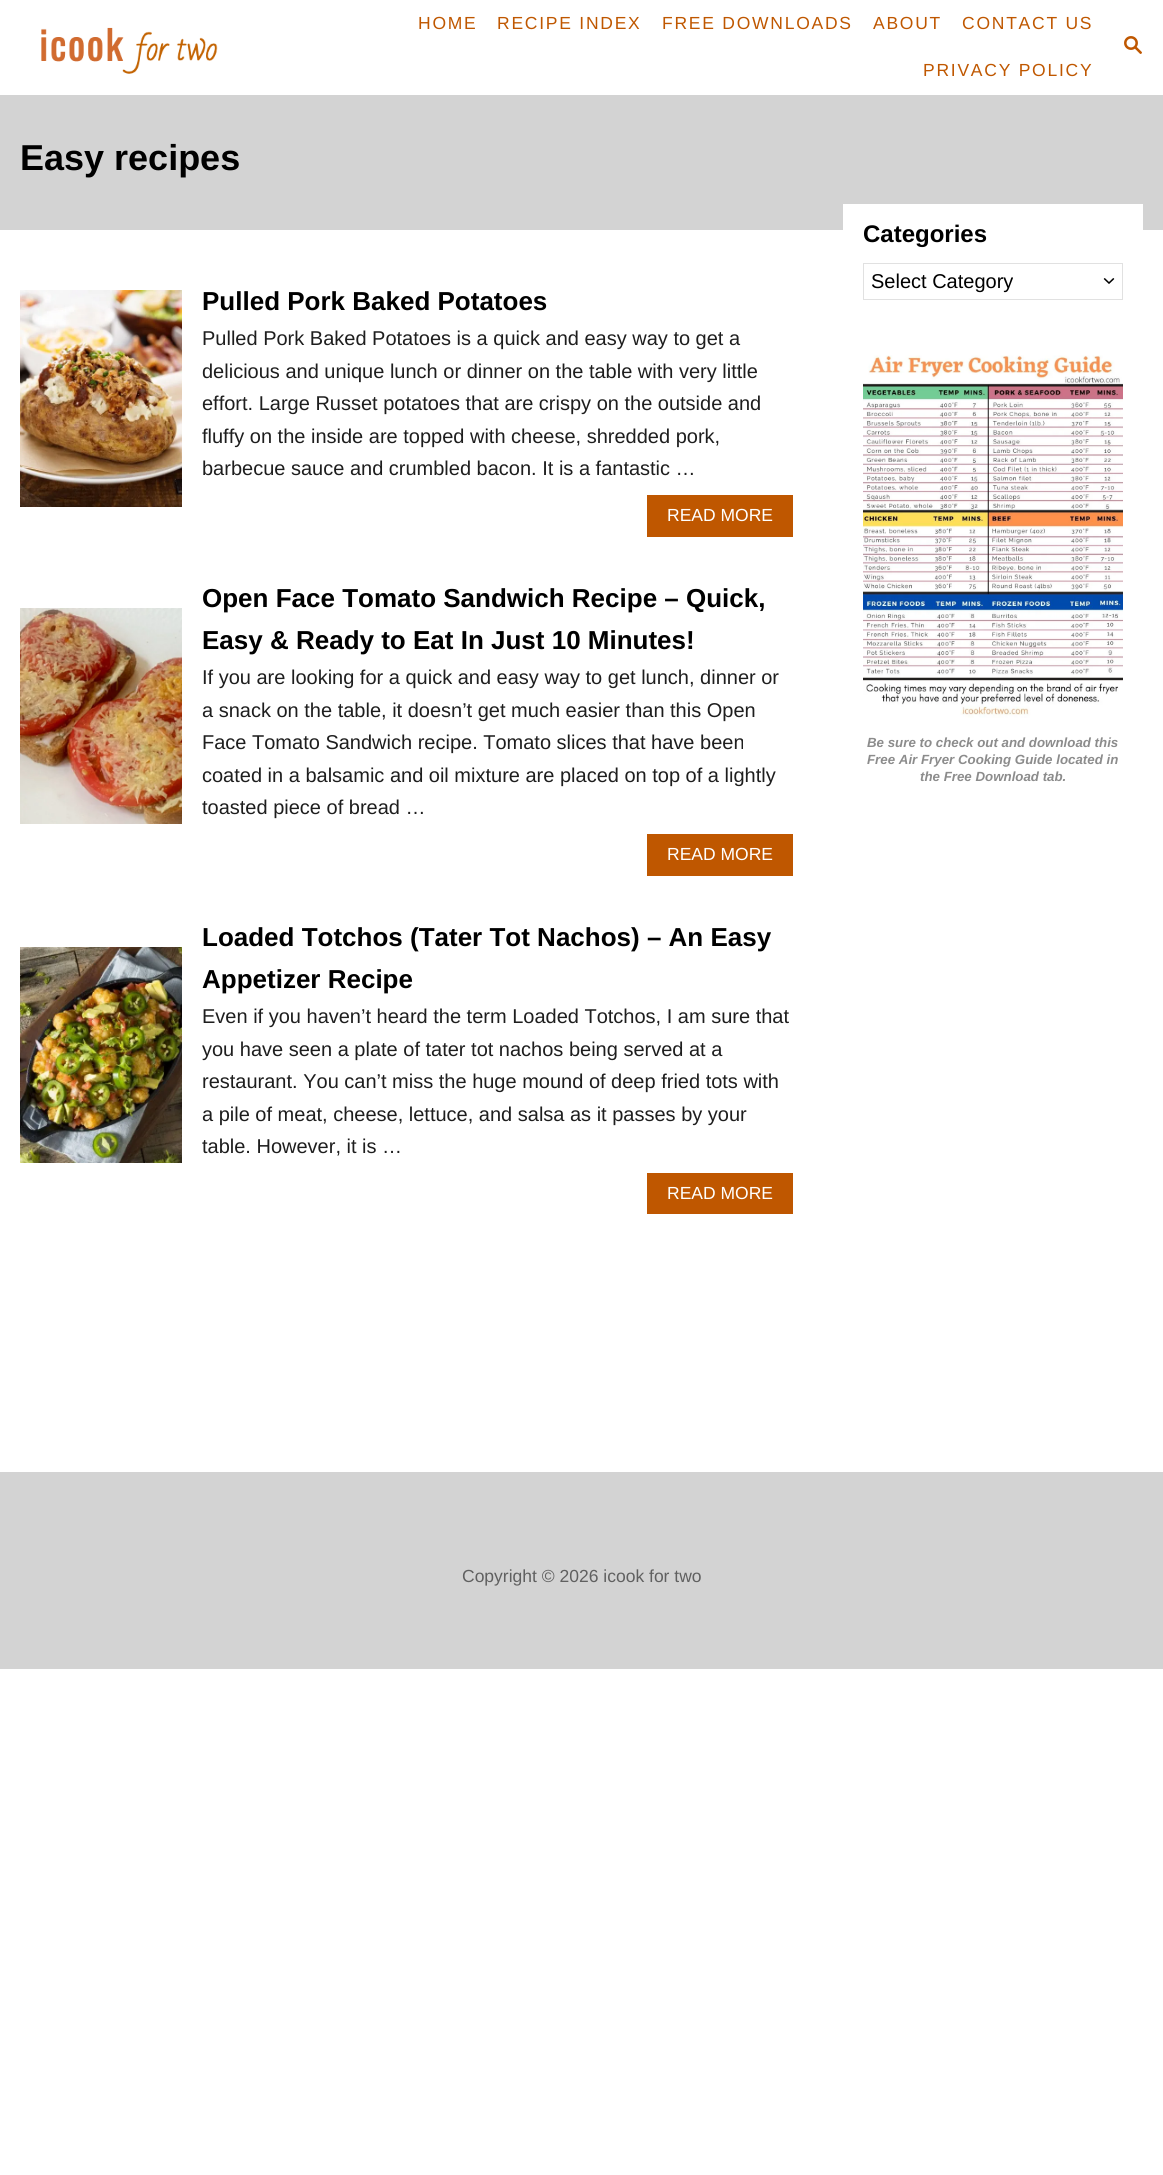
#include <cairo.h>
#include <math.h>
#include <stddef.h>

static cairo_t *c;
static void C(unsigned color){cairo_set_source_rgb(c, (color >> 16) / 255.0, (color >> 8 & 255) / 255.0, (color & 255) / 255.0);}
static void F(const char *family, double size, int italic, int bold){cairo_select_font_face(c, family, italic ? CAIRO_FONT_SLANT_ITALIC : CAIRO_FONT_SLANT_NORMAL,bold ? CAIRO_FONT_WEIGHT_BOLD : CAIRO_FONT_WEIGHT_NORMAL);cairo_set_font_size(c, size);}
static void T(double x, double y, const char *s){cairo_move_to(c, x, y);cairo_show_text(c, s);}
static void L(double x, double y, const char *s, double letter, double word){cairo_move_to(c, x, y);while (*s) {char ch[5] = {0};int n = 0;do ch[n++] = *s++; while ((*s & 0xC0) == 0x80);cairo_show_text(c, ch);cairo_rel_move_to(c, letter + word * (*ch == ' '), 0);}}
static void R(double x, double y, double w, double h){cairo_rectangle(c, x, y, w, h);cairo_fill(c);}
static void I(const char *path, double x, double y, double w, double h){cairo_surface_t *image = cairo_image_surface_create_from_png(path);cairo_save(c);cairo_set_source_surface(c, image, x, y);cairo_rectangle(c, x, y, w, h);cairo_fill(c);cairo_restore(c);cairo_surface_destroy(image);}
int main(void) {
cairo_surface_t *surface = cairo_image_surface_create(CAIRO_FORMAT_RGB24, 1163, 2175);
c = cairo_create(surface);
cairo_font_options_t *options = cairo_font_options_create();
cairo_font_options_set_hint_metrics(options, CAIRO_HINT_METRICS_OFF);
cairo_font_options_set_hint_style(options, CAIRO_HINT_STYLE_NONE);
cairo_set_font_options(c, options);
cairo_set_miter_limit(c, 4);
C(0xffffff);
cairo_paint(c);
I("1.png",41,27,177,47);
F("Liberation Sans",17.5,0,0);
C(0xbf5700);
L(418,29,"HOME",1.75,0);
L(497,29,"RECIPE INDEX",1.75,0);
L(662,29,"FREE DOWNLOADS",1.75,0);
L(873,29,"ABOUT",1.75,0);
L(962,29,"CONTACT US",1.75,0);
L(923,76,"PRIVACY POLICY",1.75,0);
I("2.png",1124,36,18,18);
C(0xd3d3d3);
R(793,95,370,135);
R(0,95,793,135);
F("Liberation Sans",36,0,1);
C(0x000000);
T(20,170,"Easy recipes");
I("3.png",20,290,162,217);
F("Liberation Sans",26,0,1);
T(202,310,"Pulled Pork Baked Potatoes");
F("Liberation Sans",20,0,0);
C(0x1e1e1e);
T(202,345,"Pulled Pork Baked Potatoes is a quick and easy way to get a");
T(202,378,"delicious and unique lunch or dinner on the table with very little");
T(202,410,"effort. Large Russet potatoes that are crispy on the outside and");
T(202,443,"fluffy on the inside are topped with cheese, shredded pork,");
T(202,475,"barbecue sauce and crumbled bacon. It is a fantastic …");
C(0xbf5700);
R(647,495,146,42);
F("Liberation Sans",17.5,0,0);
C(0xffffff);
T(667,521,"READ MORE");
I("4.png",20,608,162,216);
F("Liberation Sans",26,0,1);
C(0x000000);
T(202,607,"Open Face Tomato Sandwich Recipe – Quick,");
T(202,649,"Easy & Ready to Eat In Just 10 Minutes!");
F("Liberation Sans",20,0,0);
C(0x1e1e1e);
T(202,684,"If you are looking for a quick and easy way to get lunch, dinner or");
T(202,717,"a snack on the table, it doesn’t get much easier than this Open");
T(202,749,"Face Tomato Sandwich recipe. Tomato slices that have been");
T(202,782,"coated in a balsamic and oil mixture are placed on top of a lightly");
T(202,814,"toasted piece of bread …");
C(0xbf5700);
R(647,834,146,42);
F("Liberation Sans",17.5,0,0);
C(0xffffff);
T(667,860,"READ MORE");
I("5.png",20,947,162,216);
F("Liberation Sans",26,0,1);
C(0x000000);
T(202,946,"Loaded Totchos (Tater Tot Nachos) – An Easy");
T(202,988,"Appetizer Recipe");
F("Liberation Sans",20,0,0);
C(0x1e1e1e);
T(202,1023,"Even if you haven’t heard the term Loaded Totchos, I am sure that");
T(202,1056,"you have seen a plate of tater tot nachos being served at a");
T(202,1088,"restaurant. You can’t miss the huge mound of deep fried tots with");
T(202,1121,"a pile of meat, cheese, lettuce, and salsa as it passes by your");
T(202,1153,"table. However, it is …");
C(0xbf5700);
R(647,1173,146,41);
F("Liberation Sans",17.5,0,0);
C(0xffffff);
T(667,1199,"READ MORE");
R(843,204,300,26);
F("Liberation Sans",24,0,1);
C(0x000000);
T(863,242,"Categories");
I("6.png",1103,278,12,6);
cairo_rectangle(c,863.5,263.5,259,36);
C(0xe1e1e1);
cairo_set_line_width(c,1);
cairo_stroke(c);
F("Liberation Sans",20,0,0);
C(0x000000);
T(871,288,"Select Category");
I("7.png",863,355,260,363);
F("Liberation Sans",13.3,1,1);
C(0x8c8c8c);
T(867,747,"Be sure to check out and download this");
T(867,764,"Free Air Fryer Cooking Guide located in");
T(920,781,"the Free Download tab.");
C(0xd3d3d3);
R(0,1472,1163,197);
F("Liberation Sans",17.5,0,0);
C(0x606060);
T(462,1582,"Copyright © 2026 icook for two");
cairo_surface_write_to_png(surface, "o.png");
cairo_font_options_destroy(options);
cairo_destroy(c);
cairo_surface_destroy(surface);
return 0;
}
